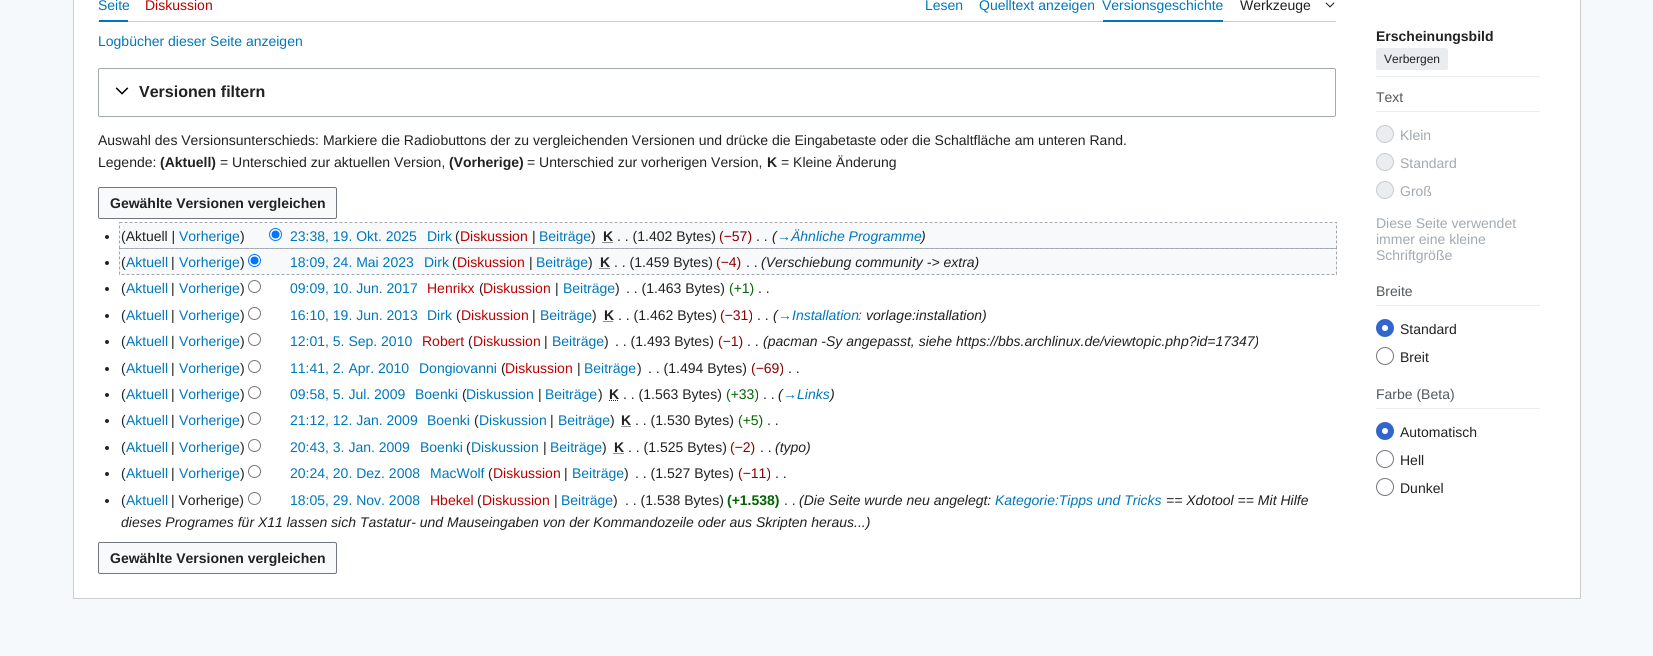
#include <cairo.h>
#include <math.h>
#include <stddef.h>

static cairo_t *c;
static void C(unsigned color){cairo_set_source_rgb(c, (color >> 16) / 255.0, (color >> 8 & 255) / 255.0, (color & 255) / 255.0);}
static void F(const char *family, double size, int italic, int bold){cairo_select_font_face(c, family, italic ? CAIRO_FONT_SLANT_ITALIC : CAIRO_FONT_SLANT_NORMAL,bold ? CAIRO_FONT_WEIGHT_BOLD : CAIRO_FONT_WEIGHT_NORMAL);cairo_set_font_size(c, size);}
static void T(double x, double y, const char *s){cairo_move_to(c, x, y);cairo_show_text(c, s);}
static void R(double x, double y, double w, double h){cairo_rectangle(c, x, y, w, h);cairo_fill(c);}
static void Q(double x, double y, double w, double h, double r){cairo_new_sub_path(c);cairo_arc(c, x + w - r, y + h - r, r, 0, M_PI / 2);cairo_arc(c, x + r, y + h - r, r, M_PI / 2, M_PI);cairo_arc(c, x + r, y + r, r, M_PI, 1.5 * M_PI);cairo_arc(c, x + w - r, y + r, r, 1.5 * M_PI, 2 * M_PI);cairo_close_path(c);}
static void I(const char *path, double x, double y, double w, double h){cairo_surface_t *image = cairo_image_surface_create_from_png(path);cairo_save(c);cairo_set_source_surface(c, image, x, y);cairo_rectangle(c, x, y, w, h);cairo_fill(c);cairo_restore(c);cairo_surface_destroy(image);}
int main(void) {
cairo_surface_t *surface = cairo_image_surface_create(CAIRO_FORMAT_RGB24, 1653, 656);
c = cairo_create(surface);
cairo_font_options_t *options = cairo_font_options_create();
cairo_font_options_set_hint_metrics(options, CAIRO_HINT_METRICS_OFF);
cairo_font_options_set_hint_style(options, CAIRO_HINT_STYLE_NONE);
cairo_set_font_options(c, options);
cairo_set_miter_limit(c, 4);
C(0xf6f9fc);
cairo_paint(c);
C(0xffffff);
cairo_rectangle(c,73.5,-.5,1507,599);
cairo_fill_preserve(c);
C(0xcccccc);
cairo_set_line_width(c,1);
cairo_stroke(c);
C(0xc8ccd1);
R(98,21,1238,1);
C(0x0077bb);
R(99,20,29,2);
F("Liberation Sans",14,0,0);
T(98,10,"Seite");
C(0xbb0000);
T(145,10,"Diskussion");
C(0x0077bb);
T(925,10,"Lesen");
T(979,10,"Quelltext anzeigen");
R(1103,20,120,2);
T(1102,10,"Versionsgeschichte");
C(0x202122);
T(1240,10,"Werkzeuge");
I("1.png",1325,2,10,6);
C(0x0077bb);
T(98,46,"Logbücher dieser Seite anzeigen");
Q(98.5,68.5,1237,48,1.5);
C(0xa2a9b1);
cairo_stroke(c);
I("2.png",115,87,14,8);
F("Liberation Sans",16,0,1);
C(0x202122);
T(139,97,"Versionen filtern");
F("Liberation Sans",14,0,0);
T(98,145,"Auswahl des Versionsunterschieds: Markiere die Radiobuttons der zu vergleichenden Versionen und drücke die Eingabetaste oder die Schaltfläche am unteren Rand.");
T(98,167,"Legende:");
F("Liberation Sans",14,0,1);
T(160,167,"(Aktuell)");
F("Liberation Sans",14,0,0);
T(220,167,"= Unterschied zur aktuellen Version,");
F("Liberation Sans",14,0,1);
T(449,167,"(Vorherige)");
F("Liberation Sans",14,0,0);
T(527,167,"= Unterschied zur vorherigen Version,");
F("Liberation Sans",14,0,1);
T(767,167,"K");
F("Liberation Sans",14,0,0);
T(781,167,"= Kleine Änderung");
C(0xf8f9fa);
Q(98.5,187.5,238,31,1.5);
cairo_fill_preserve(c);
C(0x72777d);
cairo_stroke(c);
F("Liberation Sans",14,0,1);
C(0x202122);
T(110,208,"Gewählte Versionen vergleichen");
C(0xf8f9fa);
R(120,223,1216,25);
F("Liberation Sans",14,0,0);
C(0x202122);
T(121,241,"(Aktuell |");
C(0x0077bb);
T(179,241,"Vorherige");
C(0x202122);
T(240,241,")");
C(0xffffff);
cairo_new_path(c);
cairo_arc(c,275.5,234.5,6,0,2 * M_PI);
cairo_fill_preserve(c);
C(0x0075ff);
cairo_stroke(c);
cairo_arc(c,275.5,234.5,4,0,2 * M_PI);
cairo_fill(c);
C(0x0077bb);
T(290,241,"23:38, 19. Okt. 2025");
T(427,241,"Dirk");
C(0x202122);
T(455,241,"(");
C(0xbb0000);
T(460,241,"Diskussion");
C(0x202122);
T(532,241,"|");
C(0x0077bb);
T(539,241,"Beiträge");
C(0x202122);
T(591,241,")");
F("Liberation Sans",14,0,1);
T(603,241,"K");
cairo_new_path(c);
cairo_move_to(c,602.5,242.5);
cairo_line_to(c,613,242.5);
cairo_set_dash(c,(double[]){1,1},2,0);
cairo_stroke(c);
F("Liberation Sans",14,0,0);
T(617,241,". . (1.402 Bytes)");
C(0x8b0000);
T(719,241,"(−57)");
F("Liberation Sans",14,1,0);
C(0x202122);
T(772,241,"(");
C(0x0077bb);
T(777,241,"→Ähnliche Programme");
C(0x202122);
T(921,241,")");
F("Liberation Sans",14,0,0);
T(756,241,". .");
cairo_new_path(c);
cairo_move_to(c,119.5,222.5);
cairo_line_to(c,1336.5,222.5);
cairo_line_to(c,1336.5,248.5);
cairo_line_to(c,119.5,248.5);
cairo_close_path(c);
C(0xa2a9b1);
cairo_set_dash(c,(double[]){3,2},2,0);
cairo_stroke(c);
C(0x202122);
cairo_arc(c,107,237,2,0,2 * M_PI);
cairo_fill(c);
C(0xf8f9fa);
R(120,249,1216,25);
C(0x202122);
T(121,267,"(");
C(0x0077bb);
T(126,267,"Aktuell");
C(0x202122);
T(171,267,"|");
C(0x0077bb);
T(179,267,"Vorherige");
C(0x202122);
T(240,267,")");
C(0xffffff);
cairo_new_path(c);
cairo_arc(c,254.5,260.5,6,0,2 * M_PI);
cairo_fill_preserve(c);
C(0x0075ff);
cairo_set_dash(c,NULL,0,0);
cairo_stroke(c);
cairo_arc(c,254.5,260.5,4,0,2 * M_PI);
cairo_fill(c);
C(0x0077bb);
T(290,267,"18:09, 24. Mai 2023");
T(424,267,"Dirk");
C(0x202122);
T(452,267,"(");
C(0xbb0000);
T(457,267,"Diskussion");
C(0x202122);
T(529,267,"|");
C(0x0077bb);
T(536,267,"Beiträge");
C(0x202122);
T(588,267,")");
F("Liberation Sans",14,0,1);
T(600,267,"K");
cairo_new_path(c);
cairo_move_to(c,599.5,268.5);
cairo_line_to(c,610,268.5);
cairo_set_dash(c,(double[]){1,1},2,0);
cairo_stroke(c);
F("Liberation Sans",14,0,0);
T(614,267,". . (1.459 Bytes)");
C(0x8b0000);
T(716,267,"(−4)");
F("Liberation Sans",14,1,0);
C(0x202122);
T(761,267,"(Verschiebung community -> extra)");
F("Liberation Sans",14,0,0);
T(746,267,". .");
cairo_new_path(c);
cairo_move_to(c,119.5,248.5);
cairo_line_to(c,1336.5,248.5);
cairo_line_to(c,1336.5,274.5);
cairo_line_to(c,119.5,274.5);
cairo_close_path(c);
C(0xa2a9b1);
cairo_set_dash(c,(double[]){3,2},2,0);
cairo_stroke(c);
C(0x202122);
cairo_arc(c,107,263,2,0,2 * M_PI);
cairo_fill(c);
C(0x222222);
cairo_arc(c,107,289,2,0,2 * M_PI);
cairo_fill(c);
C(0x202122);
T(121,293,"(");
C(0x0077bb);
T(126,293,"Aktuell");
C(0x202122);
T(171,293,"|");
C(0x0077bb);
T(179,293,"Vorherige");
C(0x202122);
T(240,293,")");
cairo_new_path(c);
cairo_arc(c,254.5,286.5,6,0,2 * M_PI);
C(0x767676);
cairo_set_dash(c,NULL,0,0);
cairo_stroke(c);
C(0x0077bb);
T(290,293,"09:09, 10. Jun. 2017");
C(0xbb0000);
T(427,293,"Henrikx");
C(0x202122);
T(479,293,"(");
C(0xbb0000);
T(483,293,"Diskussion");
C(0x202122);
T(555,293,"|");
C(0x0077bb);
T(563,293,"Beiträge");
C(0x202122);
T(615,293,")");
T(626,293,". . (1.463 Bytes)");
C(0x006400);
T(729,293,"(+1)");
C(0x202122);
T(758,293,". .");
C(0x222222);
cairo_new_path(c);
cairo_arc(c,107,316,2,0,2 * M_PI);
cairo_fill(c);
C(0x202122);
T(121,320,"(");
C(0x0077bb);
T(126,320,"Aktuell");
C(0x202122);
T(171,320,"|");
C(0x0077bb);
T(179,320,"Vorherige");
C(0x202122);
T(240,320,")");
cairo_new_path(c);
cairo_arc(c,254.5,313.5,6,0,2 * M_PI);
C(0x767676);
cairo_stroke(c);
C(0x0077bb);
T(290,320,"16:10, 19. Jun. 2013");
T(427,320,"Dirk");
C(0x202122);
T(456,320,"(");
C(0xbb0000);
T(461,320,"Diskussion");
C(0x202122);
T(532,320,"|");
C(0x0077bb);
T(540,320,"Beiträge");
C(0x202122);
T(592,320,")");
F("Liberation Sans",14,0,1);
T(604,320,"K");
cairo_new_path(c);
cairo_move_to(c,603.5,321.5);
cairo_line_to(c,613.5,321.5);
C(0x222222);
cairo_set_dash(c,(double[]){1,1},2,0);
cairo_stroke(c);
F("Liberation Sans",14,0,0);
C(0x202122);
T(618,320,". . (1.462 Bytes)");
C(0x8b0000);
T(720,320,"(−31)");
F("Liberation Sans",14,1,0);
C(0x202122);
T(773,320,"(");
C(0x0077bb);
T(778,320,"→Installation");
C(0x54595d);
T(858,320,":");
C(0x202122);
T(866,320,"vorlage:installation)");
F("Liberation Sans",14,0,0);
T(757,320,". .");
C(0x222222);
cairo_new_path(c);
cairo_arc(c,107,342,2,0,2 * M_PI);
cairo_fill(c);
C(0x202122);
T(121,346,"(");
C(0x0077bb);
T(126,346,"Aktuell");
C(0x202122);
T(171,346,"|");
C(0x0077bb);
T(179,346,"Vorherige");
C(0x202122);
T(240,346,")");
cairo_new_path(c);
cairo_arc(c,254.5,339.5,6,0,2 * M_PI);
C(0x767676);
cairo_set_dash(c,NULL,0,0);
cairo_stroke(c);
C(0x0077bb);
T(290,346,"12:01, 5. Sep. 2010");
C(0xbb0000);
T(422,346,"Robert");
C(0x202122);
T(468,346,"(");
C(0xbb0000);
T(473,346,"Diskussion");
C(0x202122);
T(544,346,"|");
C(0x0077bb);
T(552,346,"Beiträge");
C(0x202122);
T(604,346,")");
T(615,346,". . (1.493 Bytes)");
C(0x8b0000);
T(718,346,"(−1)");
F("Liberation Sans",14,1,0);
C(0x202122);
T(763,346,"(pacman -Sy angepasst, siehe https://bbs.archlinux.de/viewtopic.php?id=17347)");
F("Liberation Sans",14,0,0);
T(747,346,". .");
C(0x222222);
cairo_new_path(c);
cairo_arc(c,107,369,2,0,2 * M_PI);
cairo_fill(c);
C(0x202122);
T(121,373,"(");
C(0x0077bb);
T(126,373,"Aktuell");
C(0x202122);
T(171,373,"|");
C(0x0077bb);
T(179,373,"Vorherige");
C(0x202122);
T(240,373,")");
cairo_new_path(c);
cairo_arc(c,254.5,366.5,6,0,2 * M_PI);
C(0x767676);
cairo_stroke(c);
C(0x0077bb);
T(290,373,"11:41, 2. Apr. 2010");
T(419,373,"Dongiovanni");
C(0x202122);
T(501,373,"(");
C(0xbb0000);
T(505,373,"Diskussion");
C(0x202122);
T(577,373,"|");
C(0x0077bb);
T(584,373,"Beiträge");
C(0x202122);
T(637,373,")");
T(648,373,". . (1.494 Bytes)");
C(0x8b0000);
T(751,373,"(−69)");
C(0x202122);
T(788,373,". .");
C(0x222222);
cairo_new_path(c);
cairo_arc(c,107,395,2,0,2 * M_PI);
cairo_fill(c);
C(0x202122);
T(121,399,"(");
C(0x0077bb);
T(126,399,"Aktuell");
C(0x202122);
T(171,399,"|");
C(0x0077bb);
T(179,399,"Vorherige");
C(0x202122);
T(240,399,")");
cairo_new_path(c);
cairo_arc(c,254.5,392.5,6,0,2 * M_PI);
C(0x767676);
cairo_stroke(c);
C(0x0077bb);
T(290,399,"09:58, 5. Jul. 2009");
T(415,399,"Boenki");
C(0x202122);
T(462,399,"(");
C(0x0077bb);
T(466,399,"Diskussion");
C(0x202122);
T(538,399,"|");
C(0x0077bb);
T(545,399,"Beiträge");
C(0x202122);
T(598,399,")");
F("Liberation Sans",14,0,1);
T(609,399,"K");
cairo_new_path(c);
cairo_move_to(c,609,400.5);
cairo_line_to(c,619,400.5);
C(0x222222);
cairo_set_dash(c,(double[]){1,1},2,0);
cairo_stroke(c);
F("Liberation Sans",14,0,0);
C(0x202122);
T(623,399,". . (1.563 Bytes)");
C(0x006400);
T(726,399,"(+33)");
F("Liberation Sans",14,1,0);
C(0x202122);
T(778,399,"(");
C(0x0077bb);
T(783,399,"→Links");
C(0x202122);
T(830,399,")");
F("Liberation Sans",14,0,0);
T(763,399,". .");
C(0x222222);
cairo_new_path(c);
cairo_arc(c,107,421,2,0,2 * M_PI);
cairo_fill(c);
C(0x202122);
T(121,425,"(");
C(0x0077bb);
T(126,425,"Aktuell");
C(0x202122);
T(171,425,"|");
C(0x0077bb);
T(179,425,"Vorherige");
C(0x202122);
T(240,425,")");
cairo_new_path(c);
cairo_arc(c,254.5,418.5,6,0,2 * M_PI);
C(0x767676);
cairo_set_dash(c,NULL,0,0);
cairo_stroke(c);
C(0x0077bb);
T(290,425,"21:12, 12. Jan. 2009");
T(427,425,"Boenki");
C(0x202122);
T(474,425,"(");
C(0x0077bb);
T(479,425,"Diskussion");
C(0x202122);
T(550,425,"|");
C(0x0077bb);
T(558,425,"Beiträge");
C(0x202122);
T(610,425,")");
F("Liberation Sans",14,0,1);
T(621,425,"K");
cairo_new_path(c);
cairo_move_to(c,621.5,426.5);
cairo_line_to(c,631.5,426.5);
C(0x222222);
cairo_set_dash(c,(double[]){1,1},2,0);
cairo_stroke(c);
F("Liberation Sans",14,0,0);
C(0x202122);
T(635,425,". . (1.530 Bytes)");
C(0x006400);
T(738,425,"(+5)");
C(0x202122);
T(767,425,". .");
C(0x222222);
cairo_new_path(c);
cairo_arc(c,107,448,2,0,2 * M_PI);
cairo_fill(c);
C(0x202122);
T(121,452,"(");
C(0x0077bb);
T(126,452,"Aktuell");
C(0x202122);
T(171,452,"|");
C(0x0077bb);
T(179,452,"Vorherige");
C(0x202122);
T(240,452,")");
cairo_new_path(c);
cairo_arc(c,254.5,445.5,6,0,2 * M_PI);
C(0x767676);
cairo_set_dash(c,NULL,0,0);
cairo_stroke(c);
C(0x0077bb);
T(290,452,"20:43, 3. Jan. 2009");
T(420,452,"Boenki");
C(0x202122);
T(466,452,"(");
C(0x0077bb);
T(471,452,"Diskussion");
C(0x202122);
T(543,452,"|");
C(0x0077bb);
T(550,452,"Beiträge");
C(0x202122);
T(602,452,")");
F("Liberation Sans",14,0,1);
T(614,452,"K");
cairo_new_path(c);
cairo_move_to(c,613.5,453.5);
cairo_line_to(c,624,453.5);
C(0x222222);
cairo_set_dash(c,(double[]){1,1},2,0);
cairo_stroke(c);
F("Liberation Sans",14,0,0);
C(0x202122);
T(628,452,". . (1.525 Bytes)");
C(0x8b0000);
T(730,452,"(−2)");
F("Liberation Sans",14,1,0);
C(0x202122);
T(775,452,"(typo)");
F("Liberation Sans",14,0,0);
T(760,452,". .");
C(0x222222);
cairo_new_path(c);
cairo_arc(c,107,474,2,0,2 * M_PI);
cairo_fill(c);
C(0x202122);
T(121,478,"(");
C(0x0077bb);
T(126,478,"Aktuell");
C(0x202122);
T(171,478,"|");
C(0x0077bb);
T(179,478,"Vorherige");
C(0x202122);
T(240,478,")");
cairo_new_path(c);
cairo_arc(c,254.5,471.5,6,0,2 * M_PI);
C(0x767676);
cairo_set_dash(c,NULL,0,0);
cairo_stroke(c);
C(0x0077bb);
T(290,478,"20:24, 20. Dez. 2008");
T(430,478,"MacWolf");
C(0x202122);
T(488,478,"(");
C(0xbb0000);
T(493,478,"Diskussion");
C(0x202122);
T(564,478,"|");
C(0x0077bb);
T(572,478,"Beiträge");
C(0x202122);
T(624,478,")");
T(635,478,". . (1.527 Bytes)");
C(0x8b0000);
T(738,478,"(−11)");
C(0x202122);
T(775,478,". .");
C(0x222222);
cairo_new_path(c);
cairo_arc(c,107,501,2,0,2 * M_PI);
cairo_fill(c);
C(0x202122);
T(121,505,"(");
C(0x0077bb);
T(126,505,"Aktuell");
C(0x202122);
T(171,505,"| Vorherige)");
cairo_new_path(c);
cairo_arc(c,254.5,498.5,6,0,2 * M_PI);
C(0x767676);
cairo_stroke(c);
C(0x0077bb);
T(290,505,"18:05, 29. Nov. 2008");
C(0xbb0000);
T(430,505,"Hbekel");
C(0x202122);
T(477,505,"(");
C(0xbb0000);
T(482,505,"Diskussion");
C(0x202122);
T(554,505,"|");
C(0x0077bb);
T(561,505,"Beiträge");
C(0x202122);
T(613,505,")");
T(625,505,". . (1.538 Bytes)");
F("Liberation Sans",14,0,1);
C(0x006400);
T(727,505,"(+1.538)");
F("Liberation Sans",14,1,0);
C(0x202122);
T(799,505,"(Die Seite wurde neu angelegt:");
C(0x0077bb);
T(995,505,"Kategorie:Tipps und Tricks");
C(0x202122);
T(1166,505,"== Xdotool == Mit Hilfe");
F("Liberation Sans",14,0,0);
T(784,505,". .");
F("Liberation Sans",14,1,0);
T(121,527,"dieses Programes für X11 lassen sich Tastatur- und Mauseingaben von der Kommandozeile oder aus Skripten heraus...)");
C(0xf8f9fa);
Q(98.5,542.5,238,31,1.5);
cairo_fill_preserve(c);
C(0x72777d);
cairo_stroke(c);
F("Liberation Sans",14,0,1);
C(0x202122);
T(110,563,"Gewählte Versionen vergleichen");
C(0xeaecf0);
R(1376,76,164,1);
C(0x202122);
T(1376,41,"Erscheinungsbild");
C(0xeaecf0);
Q(1376,48,72,22,2);
cairo_fill(c);
F("Liberation Sans",12,0,0);
C(0x202122);
T(1384,63,"Verbergen");
C(0xeaecf0);
R(1376,111,164,1);
F("Liberation Sans",14,0,0);
C(0x54595d);
T(1376,102,"Text");
C(0xeaecf0);
cairo_new_path(c);
cairo_arc(c,1385,134,8.5,0,2 * M_PI);
cairo_fill_preserve(c);
C(0xc8ccd1);
cairo_stroke(c);
C(0xa2a9b1);
T(1400,140,"Klein");
C(0xeaecf0);
cairo_new_path(c);
cairo_arc(c,1385,162,8.5,0,2 * M_PI);
cairo_fill_preserve(c);
C(0xc8ccd1);
cairo_stroke(c);
C(0xa2a9b1);
T(1400,168,"Standard");
C(0xeaecf0);
cairo_new_path(c);
cairo_arc(c,1385,190,8.5,0,2 * M_PI);
cairo_fill_preserve(c);
C(0xc8ccd1);
cairo_stroke(c);
C(0xa2a9b1);
T(1400,196,"Groß");
T(1376,228,"Diese Seite verwendet");
T(1376,244,"immer eine kleine");
T(1376,260,"Schriftgröße");
C(0xeaecf0);
R(1376,305,164,1);
C(0x54595d);
T(1376,296,"Breite");
cairo_new_path(c);
cairo_arc(c,1385,328,6,0,2 * M_PI);
C(0x3366cc);
cairo_set_line_width(c,6);
cairo_stroke(c);
C(0x202122);
T(1400,334,"Standard");
cairo_new_path(c);
cairo_arc(c,1385,356,8.5,0,2 * M_PI);
C(0x72777d);
cairo_set_line_width(c,1);
cairo_stroke(c);
C(0x202122);
T(1400,362,"Breit");
C(0xeaecf0);
R(1376,408,164,1);
C(0x54595d);
T(1376,399,"Farbe (Beta)");
cairo_new_path(c);
cairo_arc(c,1385,431,6,0,2 * M_PI);
C(0x3366cc);
cairo_set_line_width(c,6);
cairo_stroke(c);
C(0x202122);
T(1400,437,"Automatisch");
cairo_new_path(c);
cairo_arc(c,1385,459,8.5,0,2 * M_PI);
C(0x72777d);
cairo_set_line_width(c,1);
cairo_stroke(c);
C(0x202122);
T(1400,465,"Hell");
cairo_new_path(c);
cairo_arc(c,1385,487,8.5,0,2 * M_PI);
C(0x72777d);
cairo_stroke(c);
C(0x202122);
T(1400,493,"Dunkel");
cairo_surface_write_to_png(surface, "o.png");
cairo_font_options_destroy(options);
cairo_destroy(c);
cairo_surface_destroy(surface);
return 0;
}
